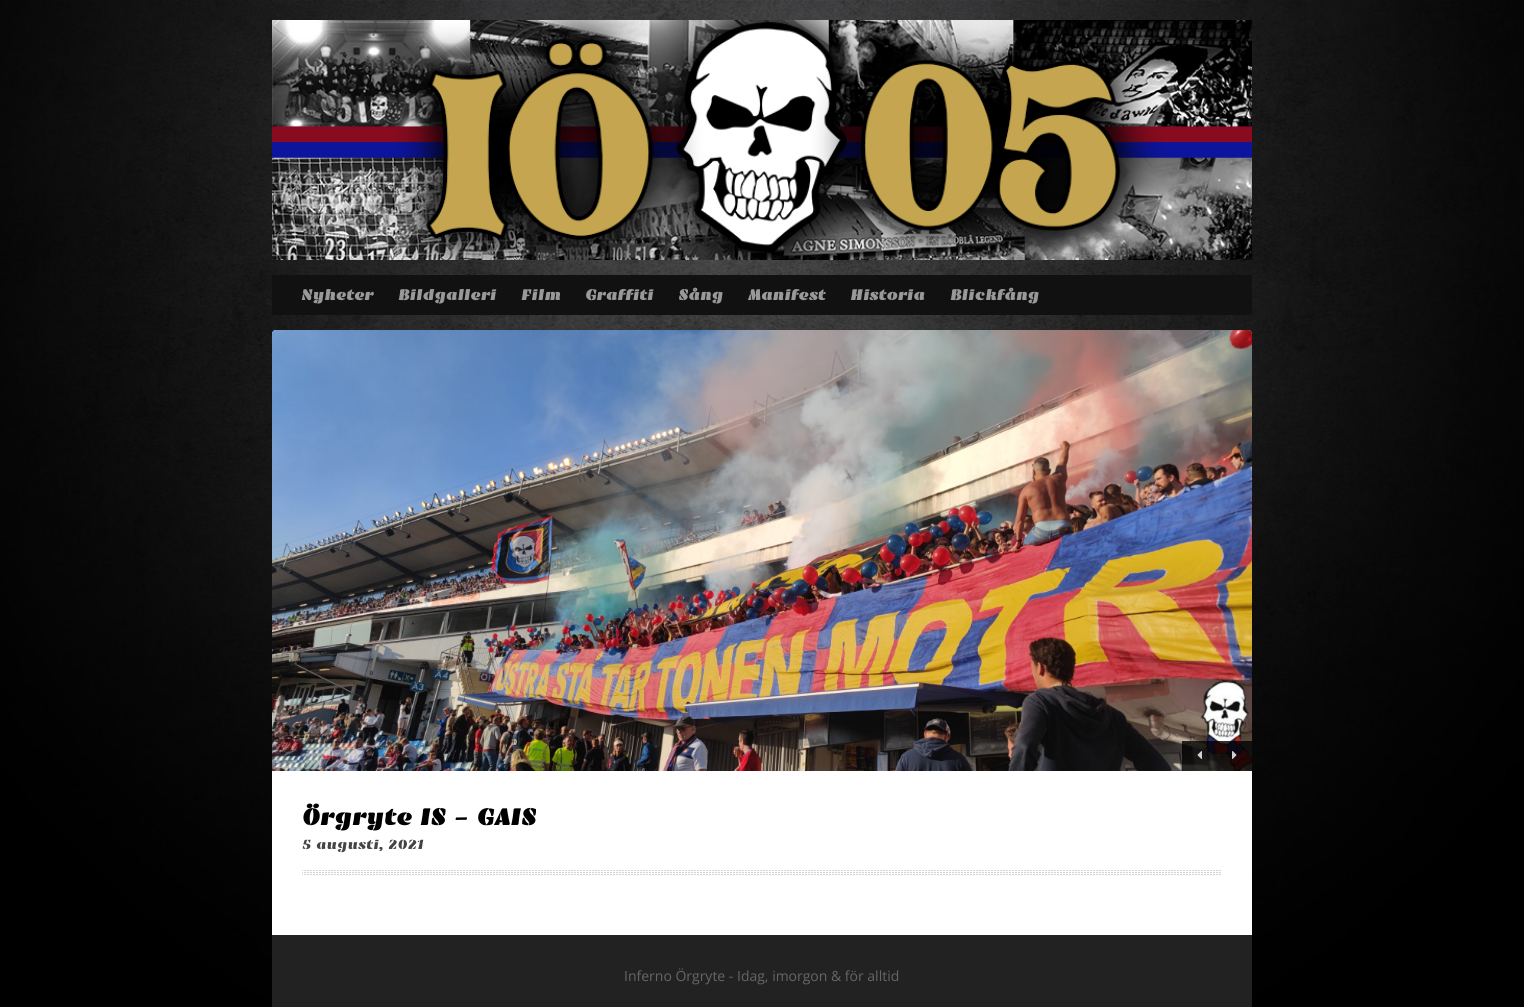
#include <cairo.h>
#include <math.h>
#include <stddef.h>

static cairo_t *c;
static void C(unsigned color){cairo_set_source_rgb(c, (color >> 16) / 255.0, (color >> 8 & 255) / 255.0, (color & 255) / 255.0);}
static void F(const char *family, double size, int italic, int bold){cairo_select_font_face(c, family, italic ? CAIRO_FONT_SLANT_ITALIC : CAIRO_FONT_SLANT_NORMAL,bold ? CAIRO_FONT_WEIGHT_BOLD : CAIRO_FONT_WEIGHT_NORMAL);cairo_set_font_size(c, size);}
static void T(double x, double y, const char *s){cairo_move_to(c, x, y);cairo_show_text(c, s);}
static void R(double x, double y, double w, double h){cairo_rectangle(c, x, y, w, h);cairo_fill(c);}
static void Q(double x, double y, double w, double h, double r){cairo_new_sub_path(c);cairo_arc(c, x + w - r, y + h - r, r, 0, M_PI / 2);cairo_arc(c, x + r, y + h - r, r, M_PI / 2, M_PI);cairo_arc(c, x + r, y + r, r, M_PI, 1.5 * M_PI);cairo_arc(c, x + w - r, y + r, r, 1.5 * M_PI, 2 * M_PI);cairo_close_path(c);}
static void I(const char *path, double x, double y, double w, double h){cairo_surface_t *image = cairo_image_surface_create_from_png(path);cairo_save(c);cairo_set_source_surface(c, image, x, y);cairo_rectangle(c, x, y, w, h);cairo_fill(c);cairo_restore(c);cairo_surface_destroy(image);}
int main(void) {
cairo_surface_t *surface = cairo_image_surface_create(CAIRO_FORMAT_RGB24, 1524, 1007);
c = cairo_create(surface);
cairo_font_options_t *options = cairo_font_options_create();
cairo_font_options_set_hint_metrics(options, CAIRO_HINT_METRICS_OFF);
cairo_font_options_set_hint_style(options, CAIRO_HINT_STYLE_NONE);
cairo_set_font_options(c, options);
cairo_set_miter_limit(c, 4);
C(0xffffff);
cairo_paint(c);
I("1.png",0,0,1524,1007);
I("2.png",272,20,980,240);
C(0x111111);
R(272,275,980,40);
F("Emblema One",15.5,0,1);
C(0x999999);
T(301,300,"Nyheter");
T(398,300,"Bildgalleri");
T(521,300,"Film");
T(585,300,"Graffiti");
T(678,300,"Sång");
T(748,300,"Manifest");
T(850,300,"Historia");
T(950,300,"Blickfång");
C(0xffffff);
Q(272,330,980,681,4);
cairo_fill(c);
I("3.png",272,330,980,441);
cairo_set_source_rgba(c,0,0,0,0.8);
R(1182,741,35,30);
I("4.png",1197,751,5,8);
R(1217,741,35,30);
I("5.png",1232,751,5,8);
I("6.png",302,870,919,5);
F("Emblema One",24,0,1);
C(0x000000);
T(302,825,"Örgryte IS – GAIS");
F("Emblema One",14,0,0);
C(0x444444);
T(302,849,"5 augusti, 2021");
C(0x222222);
R(272,935,980,72);
F("Open Sans",14,0,0);
C(0x666666);
T(624,981,"Inferno Örgryte - Idag, imorgon & för alltid");
cairo_surface_write_to_png(surface, "o.png");
cairo_font_options_destroy(options);
cairo_destroy(c);
cairo_surface_destroy(surface);
return 0;
}
